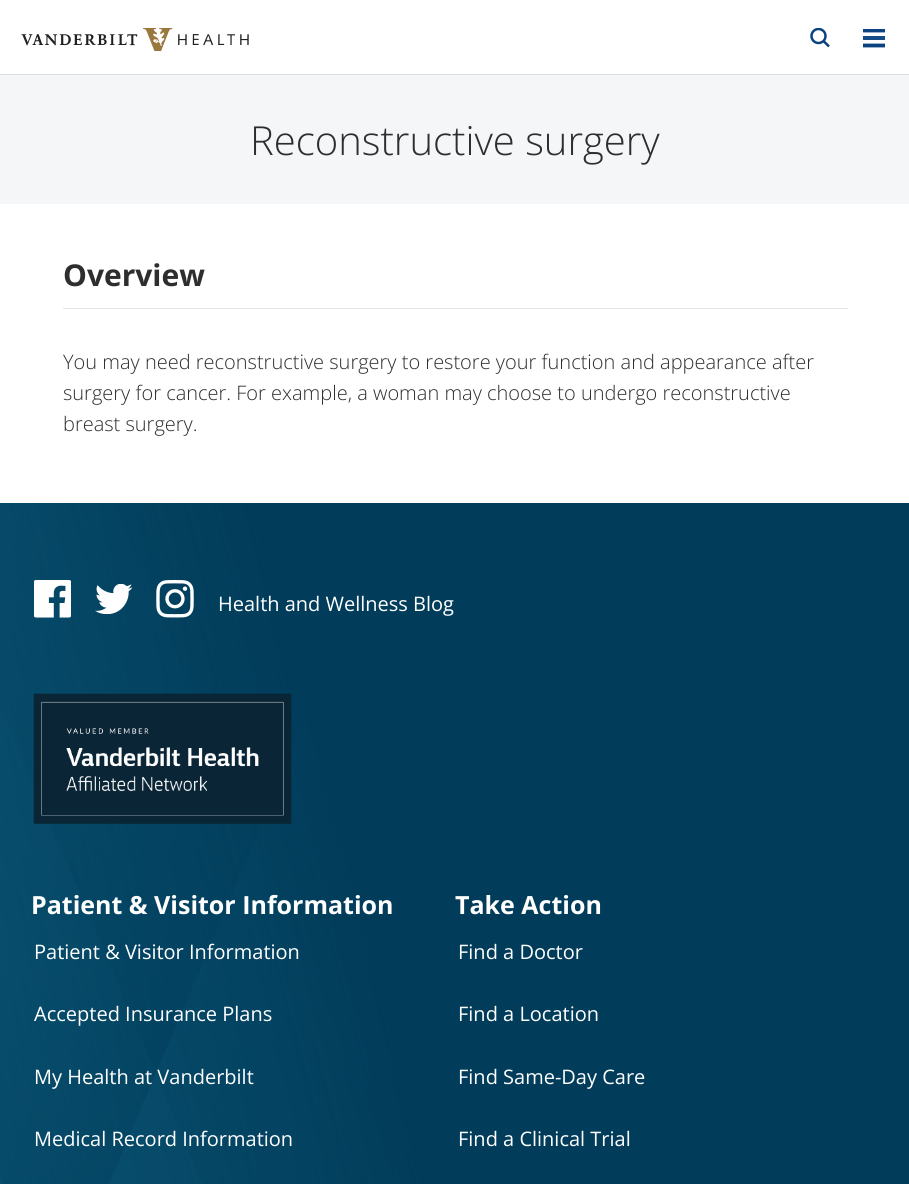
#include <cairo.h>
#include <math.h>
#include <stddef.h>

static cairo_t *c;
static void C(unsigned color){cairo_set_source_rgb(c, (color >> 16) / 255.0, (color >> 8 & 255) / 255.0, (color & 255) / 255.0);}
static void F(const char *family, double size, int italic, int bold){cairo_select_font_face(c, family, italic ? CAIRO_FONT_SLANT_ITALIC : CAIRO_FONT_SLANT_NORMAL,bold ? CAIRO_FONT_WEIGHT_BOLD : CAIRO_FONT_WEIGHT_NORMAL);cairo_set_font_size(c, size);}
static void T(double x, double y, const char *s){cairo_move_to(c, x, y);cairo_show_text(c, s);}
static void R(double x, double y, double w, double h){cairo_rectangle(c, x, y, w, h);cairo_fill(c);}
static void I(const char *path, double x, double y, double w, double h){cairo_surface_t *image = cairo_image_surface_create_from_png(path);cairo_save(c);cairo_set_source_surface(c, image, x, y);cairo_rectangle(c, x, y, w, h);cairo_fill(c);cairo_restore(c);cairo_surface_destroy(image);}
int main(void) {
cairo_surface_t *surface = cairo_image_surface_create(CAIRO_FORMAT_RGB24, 909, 1184);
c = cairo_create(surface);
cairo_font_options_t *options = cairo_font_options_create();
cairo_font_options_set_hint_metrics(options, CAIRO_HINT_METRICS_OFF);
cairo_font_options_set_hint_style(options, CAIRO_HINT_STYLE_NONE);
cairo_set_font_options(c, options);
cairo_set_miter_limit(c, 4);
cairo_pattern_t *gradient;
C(0xffffff);
cairo_paint(c);
C(0xdddee1);
R(0,74,909,1);
I("1.png",21,28,228,23);
cairo_new_path(c);
cairo_move_to(c,823.5,41);
cairo_line_to(c,829,46.5);
C(0x0a4380);
cairo_set_line_width(c,2.5);
cairo_stroke(c);
cairo_save(c);
cairo_rectangle(c,810,28,20,20);
cairo_clip(c);
cairo_arc(c,818.5,36,7,0,2 * M_PI);
cairo_stroke(c);
cairo_restore(c);
cairo_save(c);
cairo_rectangle(c,863,29,22,19);
cairo_clip(c);
cairo_new_path(c);
cairo_move_to(c,862.5,30.5);
cairo_line_to(c,885,30.5);
cairo_set_line_width(c,3.8);
cairo_stroke(c);
cairo_restore(c);
C(0x164c86);
R(863,36,22,4);
cairo_save(c);
cairo_rectangle(c,863,29,22,19);
cairo_clip(c);
cairo_new_path(c);
cairo_move_to(c,862.5,45.5);
cairo_line_to(c,885,45.5);
C(0x0a4380);
cairo_set_line_width(c,3.8);
cairo_stroke(c);
cairo_restore(c);
C(0xf5f6f8);
R(0,75,909,129);
F("Open Sans Light",40,0,0);
C(0x2e2e2f);
T(250,155,"Reconstructive surgery");
C(0xe4e4e4);
R(63,308,785,1);
F("Open Sans",30,0,1);
C(0x2e2e2f);
T(63,286,"Overview");
F("Open Sans Light",20,0,0);
T(63,369,"You may need reconstructive surgery to restore your function and appearance after");
T(63,400,"surgery for cancer. For example, a woman may choose to undergo reconstructive");
T(63,431,"breast surgery.");
gradient = cairo_pattern_create_linear(-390,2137,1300,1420);
cairo_pattern_add_color_stop_rgba(gradient,0,0.043,0.357,0.486,1);
cairo_pattern_add_color_stop_rgba(gradient,.05,0.067,0.404,0.533,1);
cairo_pattern_add_color_stop_rgba(gradient,.1,0.078,0.427,0.561,1);
cairo_pattern_add_color_stop_rgba(gradient,.1,0.043,0.357,0.486,1);
cairo_pattern_add_color_stop_rgba(gradient,.15,0.067,0.404,0.533,1);
cairo_pattern_add_color_stop_rgba(gradient,.2,0.078,0.427,0.561,1);
cairo_pattern_add_color_stop_rgba(gradient,.2,0.043,0.357,0.486,1);
cairo_pattern_add_color_stop_rgba(gradient,.25,0.067,0.404,0.533,1);
cairo_pattern_add_color_stop_rgba(gradient,.3,0.078,0.427,0.561,1);
cairo_pattern_add_color_stop_rgba(gradient,.3,0.043,0.357,0.486,1);
cairo_pattern_add_color_stop_rgba(gradient,.35,0.067,0.404,0.533,1);
cairo_pattern_add_color_stop_rgba(gradient,.4,0.078,0.427,0.561,1);
cairo_pattern_add_color_stop_rgba(gradient,.4,0.043,0.357,0.486,1);
cairo_pattern_add_color_stop_rgba(gradient,.45,0.067,0.404,0.533,1);
cairo_pattern_add_color_stop_rgba(gradient,.5,0.078,0.427,0.561,1);
cairo_pattern_add_color_stop_rgba(gradient,.5,0.043,0.357,0.486,1);
cairo_pattern_add_color_stop_rgba(gradient,.55,0.067,0.404,0.533,1);
cairo_pattern_add_color_stop_rgba(gradient,.6,0.078,0.427,0.561,1);
cairo_pattern_add_color_stop_rgba(gradient,.6,0.043,0.357,0.486,1);
cairo_pattern_add_color_stop_rgba(gradient,.65,0.067,0.404,0.533,1);
cairo_pattern_add_color_stop_rgba(gradient,.7,0.078,0.427,0.561,1);
cairo_pattern_add_color_stop_rgba(gradient,.7,0.043,0.357,0.486,1);
cairo_pattern_add_color_stop_rgba(gradient,.75,0.067,0.404,0.533,1);
cairo_pattern_add_color_stop_rgba(gradient,.8,0.078,0.427,0.561,1);
cairo_pattern_add_color_stop_rgba(gradient,.8,0.043,0.357,0.486,1);
cairo_pattern_add_color_stop_rgba(gradient,.85,0.067,0.404,0.533,1);
cairo_pattern_add_color_stop_rgba(gradient,.9,0.078,0.427,0.561,1);
cairo_pattern_add_color_stop_rgba(gradient,.9,0.043,0.357,0.486,1);
cairo_pattern_add_color_stop_rgba(gradient,.95,0.067,0.404,0.533,1);
cairo_pattern_add_color_stop_rgba(gradient,1,0.078,0.427,0.561,1);
cairo_set_source(c,gradient);
cairo_pattern_destroy(gradient);
R(0,503,450,681);
gradient = cairo_pattern_create_linear(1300,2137,-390,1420);
cairo_pattern_add_color_stop_rgba(gradient,0,0.02,0.314,0.435,.6);
cairo_pattern_add_color_stop_rgba(gradient,.1,0.059,0.392,0.514,.6);
cairo_pattern_add_color_stop_rgba(gradient,.2,0.078,0.427,0.561,.6);
cairo_pattern_add_color_stop_rgba(gradient,.2,0.02,0.314,0.435,.6);
cairo_pattern_add_color_stop_rgba(gradient,.3,0.059,0.392,0.514,.6);
cairo_pattern_add_color_stop_rgba(gradient,.4,0.078,0.427,0.561,.6);
cairo_pattern_add_color_stop_rgba(gradient,.4,0.02,0.314,0.435,.6);
cairo_pattern_add_color_stop_rgba(gradient,.5,0.059,0.392,0.514,.6);
cairo_pattern_add_color_stop_rgba(gradient,.6,0.078,0.427,0.561,.6);
cairo_pattern_add_color_stop_rgba(gradient,.6,0.02,0.314,0.435,.6);
cairo_pattern_add_color_stop_rgba(gradient,.7,0.059,0.392,0.514,.6);
cairo_pattern_add_color_stop_rgba(gradient,.8,0.078,0.427,0.561,.6);
cairo_pattern_add_color_stop_rgba(gradient,.8,0.02,0.314,0.435,.6);
cairo_pattern_add_color_stop_rgba(gradient,.9,0.059,0.392,0.514,.6);
cairo_pattern_add_color_stop_rgba(gradient,1,0.078,0.427,0.561,.6);
cairo_set_source(c,gradient);
cairo_pattern_destroy(gradient);
R(0,503,450,681);
gradient = cairo_pattern_create_linear(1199,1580,-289,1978);
cairo_pattern_add_color_stop_rgba(gradient,.4,0.004,0.235,0.353,1);
cairo_pattern_add_color_stop_rgba(gradient,1,0.004,0.235,0.353,0);
cairo_set_source(c,gradient);
cairo_pattern_destroy(gradient);
R(0,503,909,681);
I("2.png",34,580,37,38);
I("3.png",95,584,38,30);
I("4.png",156,580,38,38);
F("Open Sans",20,0,0);
C(0xffffff);
T(218,611,"Health and Wellness Blog");
I("5.png",33,693,259,131);
F("Open Sans",25,0,1);
T(31,914,"Patient & Visitor Information");
F("Open Sans",20,0,0);
T(34,959,"Patient & Visitor Information");
T(34,1021,"Accepted Insurance Plans");
T(34,1084,"My Health at Vanderbilt");
T(34,1146,"Medical Record Information");
F("Open Sans",25,0,1);
T(455,914,"Take Action");
F("Open Sans",20,0,0);
T(458,959,"Find a Doctor");
T(458,1021,"Find a Location");
T(458,1084,"Find Same-Day Care");
T(458,1146,"Find a Clinical Trial");
cairo_surface_write_to_png(surface, "o.png");
cairo_font_options_destroy(options);
cairo_destroy(c);
cairo_surface_destroy(surface);
return 0;
}
